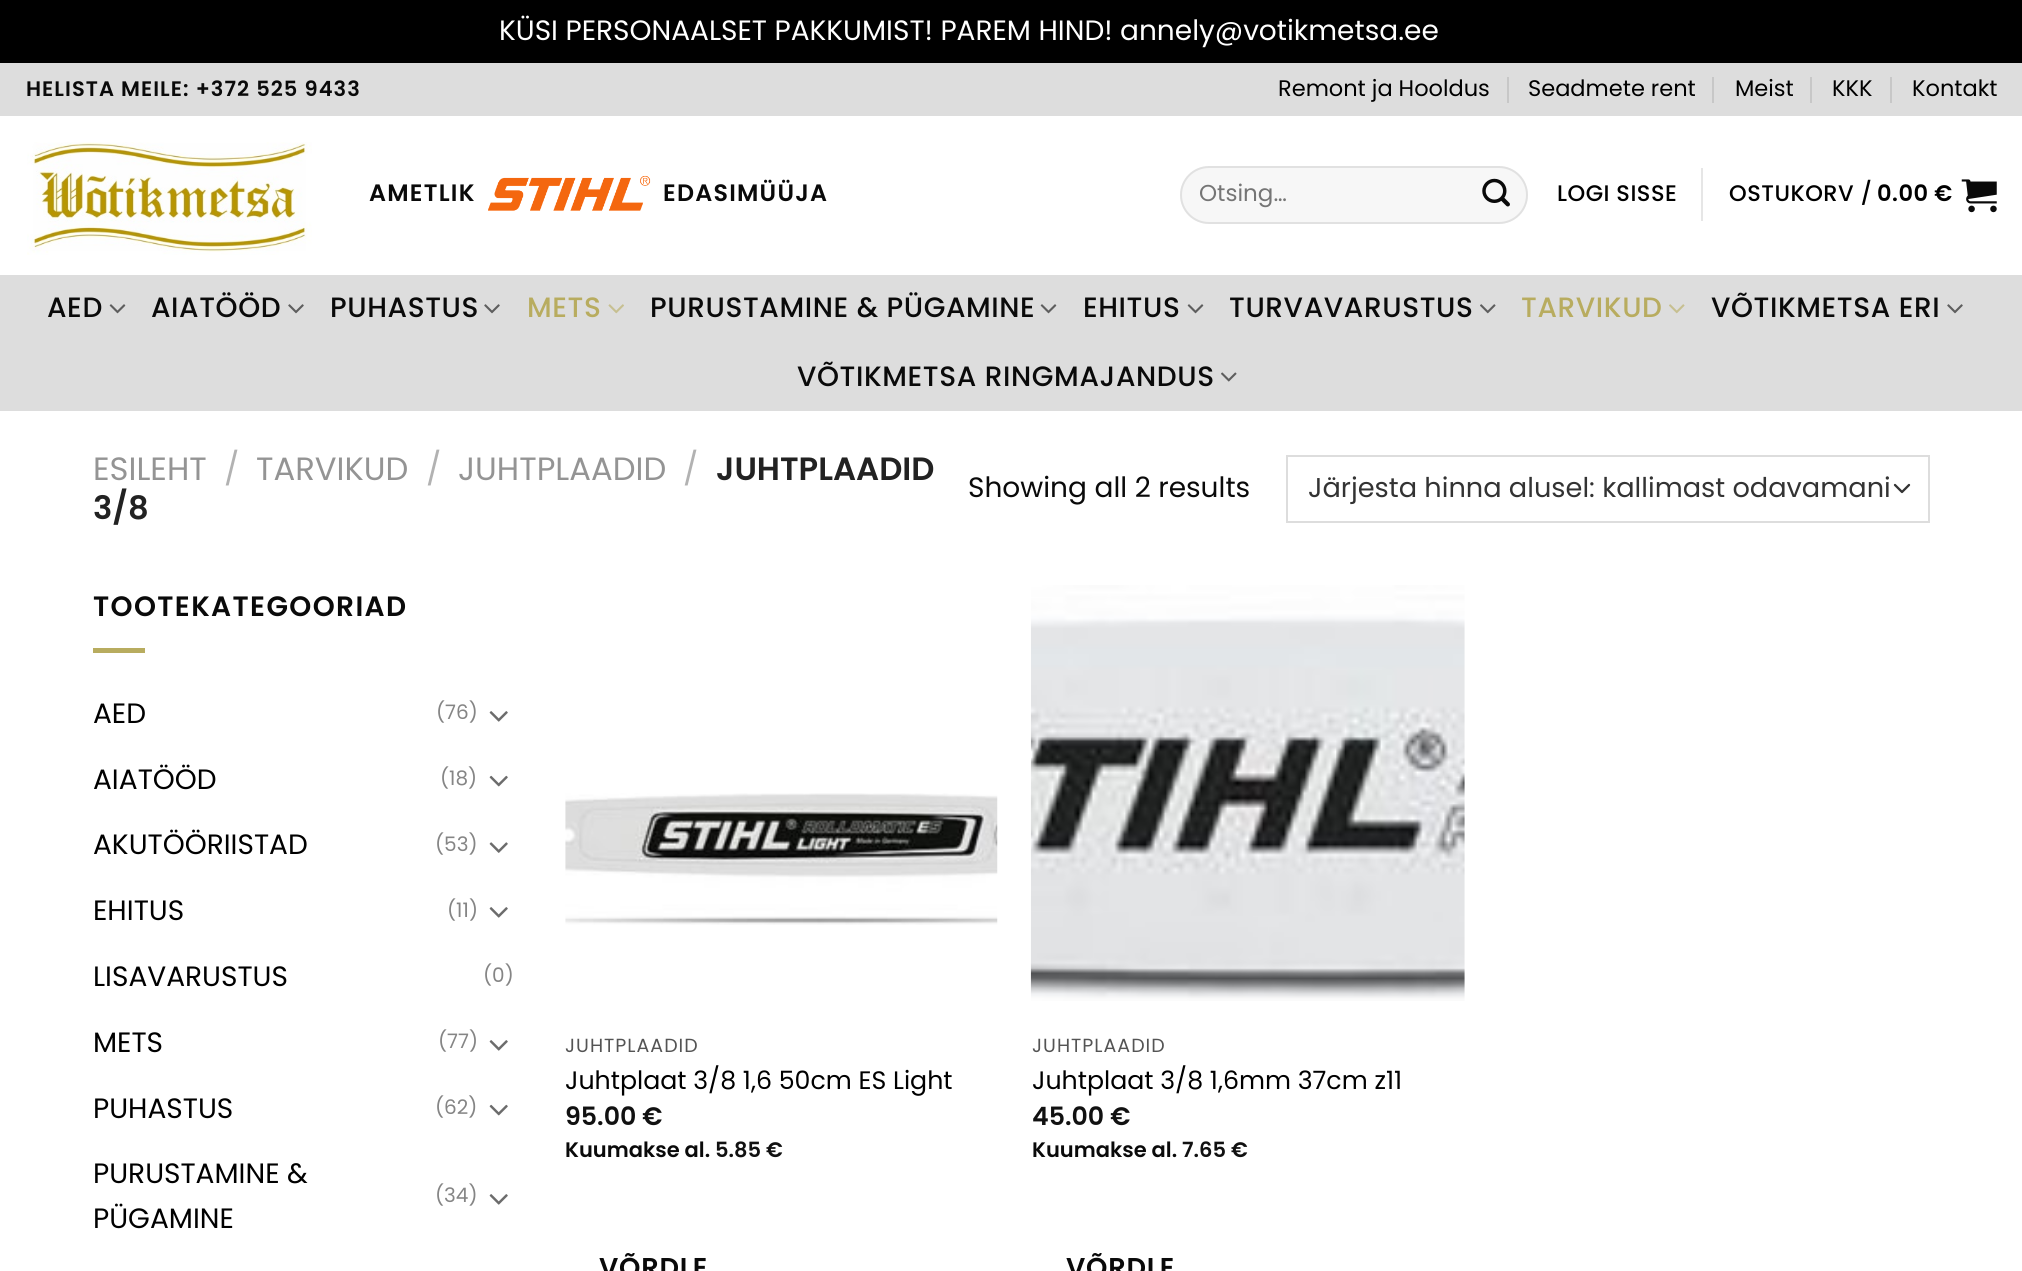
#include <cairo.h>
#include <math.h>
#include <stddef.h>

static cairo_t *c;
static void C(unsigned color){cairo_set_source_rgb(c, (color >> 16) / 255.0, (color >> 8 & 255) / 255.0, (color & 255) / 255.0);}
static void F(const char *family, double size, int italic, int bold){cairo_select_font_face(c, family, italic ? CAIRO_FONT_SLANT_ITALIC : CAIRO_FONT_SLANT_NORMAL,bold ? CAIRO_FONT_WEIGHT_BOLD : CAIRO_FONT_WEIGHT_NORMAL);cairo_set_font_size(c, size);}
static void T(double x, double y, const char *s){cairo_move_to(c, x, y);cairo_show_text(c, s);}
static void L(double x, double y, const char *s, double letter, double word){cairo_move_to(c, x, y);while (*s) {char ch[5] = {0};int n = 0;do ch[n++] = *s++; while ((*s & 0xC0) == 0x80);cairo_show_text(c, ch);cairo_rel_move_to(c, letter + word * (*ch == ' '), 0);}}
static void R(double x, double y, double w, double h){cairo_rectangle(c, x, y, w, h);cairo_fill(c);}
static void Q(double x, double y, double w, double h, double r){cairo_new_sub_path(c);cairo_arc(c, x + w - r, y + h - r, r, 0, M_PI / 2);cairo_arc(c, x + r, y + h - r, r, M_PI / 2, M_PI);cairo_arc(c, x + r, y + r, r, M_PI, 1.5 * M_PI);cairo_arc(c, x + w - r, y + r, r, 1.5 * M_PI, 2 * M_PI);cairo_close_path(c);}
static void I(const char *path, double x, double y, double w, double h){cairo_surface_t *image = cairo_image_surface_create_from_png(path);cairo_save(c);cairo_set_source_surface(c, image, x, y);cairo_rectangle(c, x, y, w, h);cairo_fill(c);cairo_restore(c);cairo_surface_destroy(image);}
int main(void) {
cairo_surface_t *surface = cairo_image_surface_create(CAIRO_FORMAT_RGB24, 2022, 1271);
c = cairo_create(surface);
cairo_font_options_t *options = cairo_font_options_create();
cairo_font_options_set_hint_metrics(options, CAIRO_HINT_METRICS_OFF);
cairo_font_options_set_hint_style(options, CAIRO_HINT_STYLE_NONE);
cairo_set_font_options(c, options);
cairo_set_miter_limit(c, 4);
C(0x000000);
cairo_paint(c);
F("Poppins",28,0,0);
C(0xffffff);
T(499,40,"KÜSI PERSONAALSET PAKKUMIST! PAREM HIND! annely@votikmetsa.ee");
R(0,116,2022,1155);
C(0xdddddd);
R(0,63,2022,53);
F("Poppins SemiBold",21,0,0);
C(0x0a0a0a);
L(26,96,"HELISTA MEILE: +372 525 9433",1.05,0);
F("Poppins",22.5,0,0);
C(0x000000);
T(1278,96,"Remont ja Hooldus");
C(0xc7c7c7);
R(1507,77,2,26);
C(0x000000);
T(1528,96,"Seadmete rent");
C(0xc7c7c7);
R(1712,77,2,26);
C(0x000000);
T(1735,96,"Meist");
C(0xc7c7c7);
R(1810,77,2,26);
C(0x000000);
T(1832,96,"KKK");
C(0xc7c7c7);
R(1890,77,2,26);
C(0x000000);
T(1912,96,"Kontakt");
I("1.png",27,142,285,113);
F("Poppins SemiBold",23.75,0,0);
C(0x0a0a0a);
L(369,201,"AMETLIK",1.25,0);
I("2.png",488,175,163,36);
L(663,201,"EDASIMÜÜJA",1.25,0);
C(0xf7f7f7);
Q(1180,166,348,58,29);
cairo_fill(c);
Q(1181,167,346,56,28);
cairo_set_source_rgba(c,0,0,0,0.09);
cairo_stroke(c);
F("Poppins",23,0,0);
C(0x757575);
T(1199,201,"Otsing…");
I("3.png",1482,178,28,29);
F("Poppins Medium",22.5,0,0);
C(0x000000);
L(1557,201,"LOGI SISSE",.5,0);
C(0xe6e6e6);
R(1701,168,2,53);
C(0x000000);
L(1729,201,"OSTUKORV /",.5,0);
F("Poppins SemiBold",22.5,0,0);
L(1877,201,"0.00 €",.5,0);
I("4.png",1961,179,36,34);
C(0xdddddd);
R(0,275,2022,136);
F("Poppins Medium",28,0,0);
C(0x0a0a0a);
L(47,317,"AED",.6,0);
I("5.png",109,304,17,10);
L(151,317,"AIATÖÖD",.6,0);
I("6.png",288,304,16,10);
L(330,317,"PUHASTUS",.6,0);
I("6.png",484,304,16,10);
C(0xb8ac5f);
L(527,317,"METS",.6,0);
I("7.png",608,304,16,10);
C(0x0a0a0a);
L(650,317,"PURUSTAMINE & PÜGAMINE",.6,0);
I("5.png",1040,304,17,10);
L(1083,317,"EHITUS",.6,0);
I("5.png",1187,304,17,10);
L(1229,317,"TURVAVARUSTUS",.6,0);
I("8.png",1480,304,16,10);
C(0xb8ac5f);
L(1521,317,"TARVIKUD",.6,0);
I("9.png",1669,304,16,10);
C(0x0a0a0a);
L(1711,317,"VÕTIKMETSA ERI",.6,0);
I("6.png",1947,304,16,10);
L(797,386,"VÕTIKMETSA RINGMAJANDUS",.6,0);
I("10.png",1221,372,16,10);
F("Poppins",32.25,0,0);
C(0x949494);
T(93,480,"ESILEHT");
C(0xb2b2b2);
T(224,480,"/");
C(0x949494);
T(256,480,"TARVIKUD");
C(0xb2b2b2);
T(426,480,"/");
C(0x949494);
T(458,480,"JUHTPLAADID");
C(0xb2b2b2);
T(683,480,"/");
F("Poppins SemiBold",32.25,0,0);
C(0x222222);
T(716,480,"JUHTPLAADID");
T(93,519,"3/8");
F("Poppins",28,0,0);
C(0x0a0a0a);
T(968,497,"Showing all 2 results");
cairo_new_path(c);
cairo_move_to(c,1895,485);
cairo_line_to(c,1902,492);
cairo_line_to(c,1909,485);
C(0x333333);
cairo_set_line_width(c,2.3);
cairo_set_line_cap(c,CAIRO_LINE_CAP_ROUND);
cairo_set_line_join(c,CAIRO_LINE_JOIN_ROUND);
cairo_stroke(c);
cairo_rectangle(c,1287,456,642,66);
C(0xdddddd);
cairo_set_line_width(c,2);
cairo_set_line_cap(c,CAIRO_LINE_CAP_BUTT);
cairo_set_line_join(c,CAIRO_LINE_JOIN_MITER);
cairo_stroke(c);
F("Poppins",27.2,0,0);
C(0x333333);
T(1308,497,"Järjesta hinna alusel: kallimast odavamani");
F("Poppins SemiBold",28,0,0);
C(0x0a0a0a);
L(93,616,"TOOTEKATEGOORIAD",1.4,0);
C(0xb8ac5f);
R(93,648,52,5);
F("Poppins",28,0,0);
C(0x000000);
T(93,723,"AED");
F("Poppins",20,0,0);
C(0x858585);
T(436,719,"(76)");
I("11.png",489,711,19,11);
F("Poppins",28,0,0);
C(0x000000);
T(93,789,"AIATÖÖD");
F("Poppins",20,0,0);
C(0x858585);
T(440,785,"(18)");
I("12.png",489,775,19,12);
F("Poppins",28,0,0);
C(0x000000);
T(93,854,"AKUTÖÖRIISTAD");
F("Poppins",20,0,0);
C(0x858585);
T(435,851,"(53)");
I("13.png",489,842,19,11);
F("Poppins",28,0,0);
C(0x000000);
T(93,920,"EHITUS");
F("Poppins",20,0,0);
C(0x858585);
T(447,917,"(11)");
I("11.png",489,907,19,11);
F("Poppins",28,0,0);
C(0x000000);
T(93,986,"LISAVARUSTUS");
F("Poppins",20,0,0);
C(0x858585);
T(483,982,"(0)");
F("Poppins",28,0,0);
C(0x000000);
T(93,1052,"METS");
F("Poppins",20,0,0);
C(0x858585);
T(438,1048,"(77)");
I("11.png",489,1040,19,11);
F("Poppins",28,0,0);
C(0x000000);
T(93,1118,"PUHASTUS");
F("Poppins",20,0,0);
C(0x858585);
T(435,1114,"(62)");
I("12.png",489,1104,19,12);
F("Poppins",28,0,0);
C(0x000000);
T(93,1183,"PURUSTAMINE &");
T(93,1228,"PÜGAMINE");
F("Poppins",20,0,0);
C(0x858585);
T(435,1202,"(34)");
I("11.png",489,1194,19,11);
I("14.png",565,793,433,132);
F("Poppins",19,0,0);
C(0x545454);
L(565,1052,"JUHTPLAADID",1,0);
F("Poppins",25.25,0,0);
C(0x000000);
T(565,1089,"Juhtplaat 3/8 1,6 50cm ES Light");
F("Poppins SemiBold",25.25,0,0);
C(0x111111);
T(565,1125,"95.00 €");
F("Poppins SemiBold",21,0,0);
C(0x0a0a0a);
T(565,1157,"Kuumakse al.");
C(0x111111);
T(715,1157,"5.85 €");
F("Poppins SemiBold",27.2,0,0);
C(0x0a0a0a);
L(599,1277,"VÕRDLE",.75,0);
I("15.png",1030,585,435,416);
F("Poppins",19,0,0);
C(0x545454);
L(1032,1052,"JUHTPLAADID",1,0);
F("Poppins",25.25,0,0);
C(0x000000);
T(1032,1089,"Juhtplaat 3/8 1,6mm 37cm z11");
F("Poppins SemiBold",25.25,0,0);
C(0x111111);
T(1032,1125,"45.00 €");
F("Poppins SemiBold",21,0,0);
C(0x0a0a0a);
T(1032,1157,"Kuumakse al.");
C(0x111111);
T(1182,1157,"7.65 €");
F("Poppins SemiBold",27.2,0,0);
C(0x0a0a0a);
L(1066,1277,"VÕRDLE",.75,0);
cairo_surface_write_to_png(surface, "o.png");
cairo_font_options_destroy(options);
cairo_destroy(c);
cairo_surface_destroy(surface);
return 0;
}
